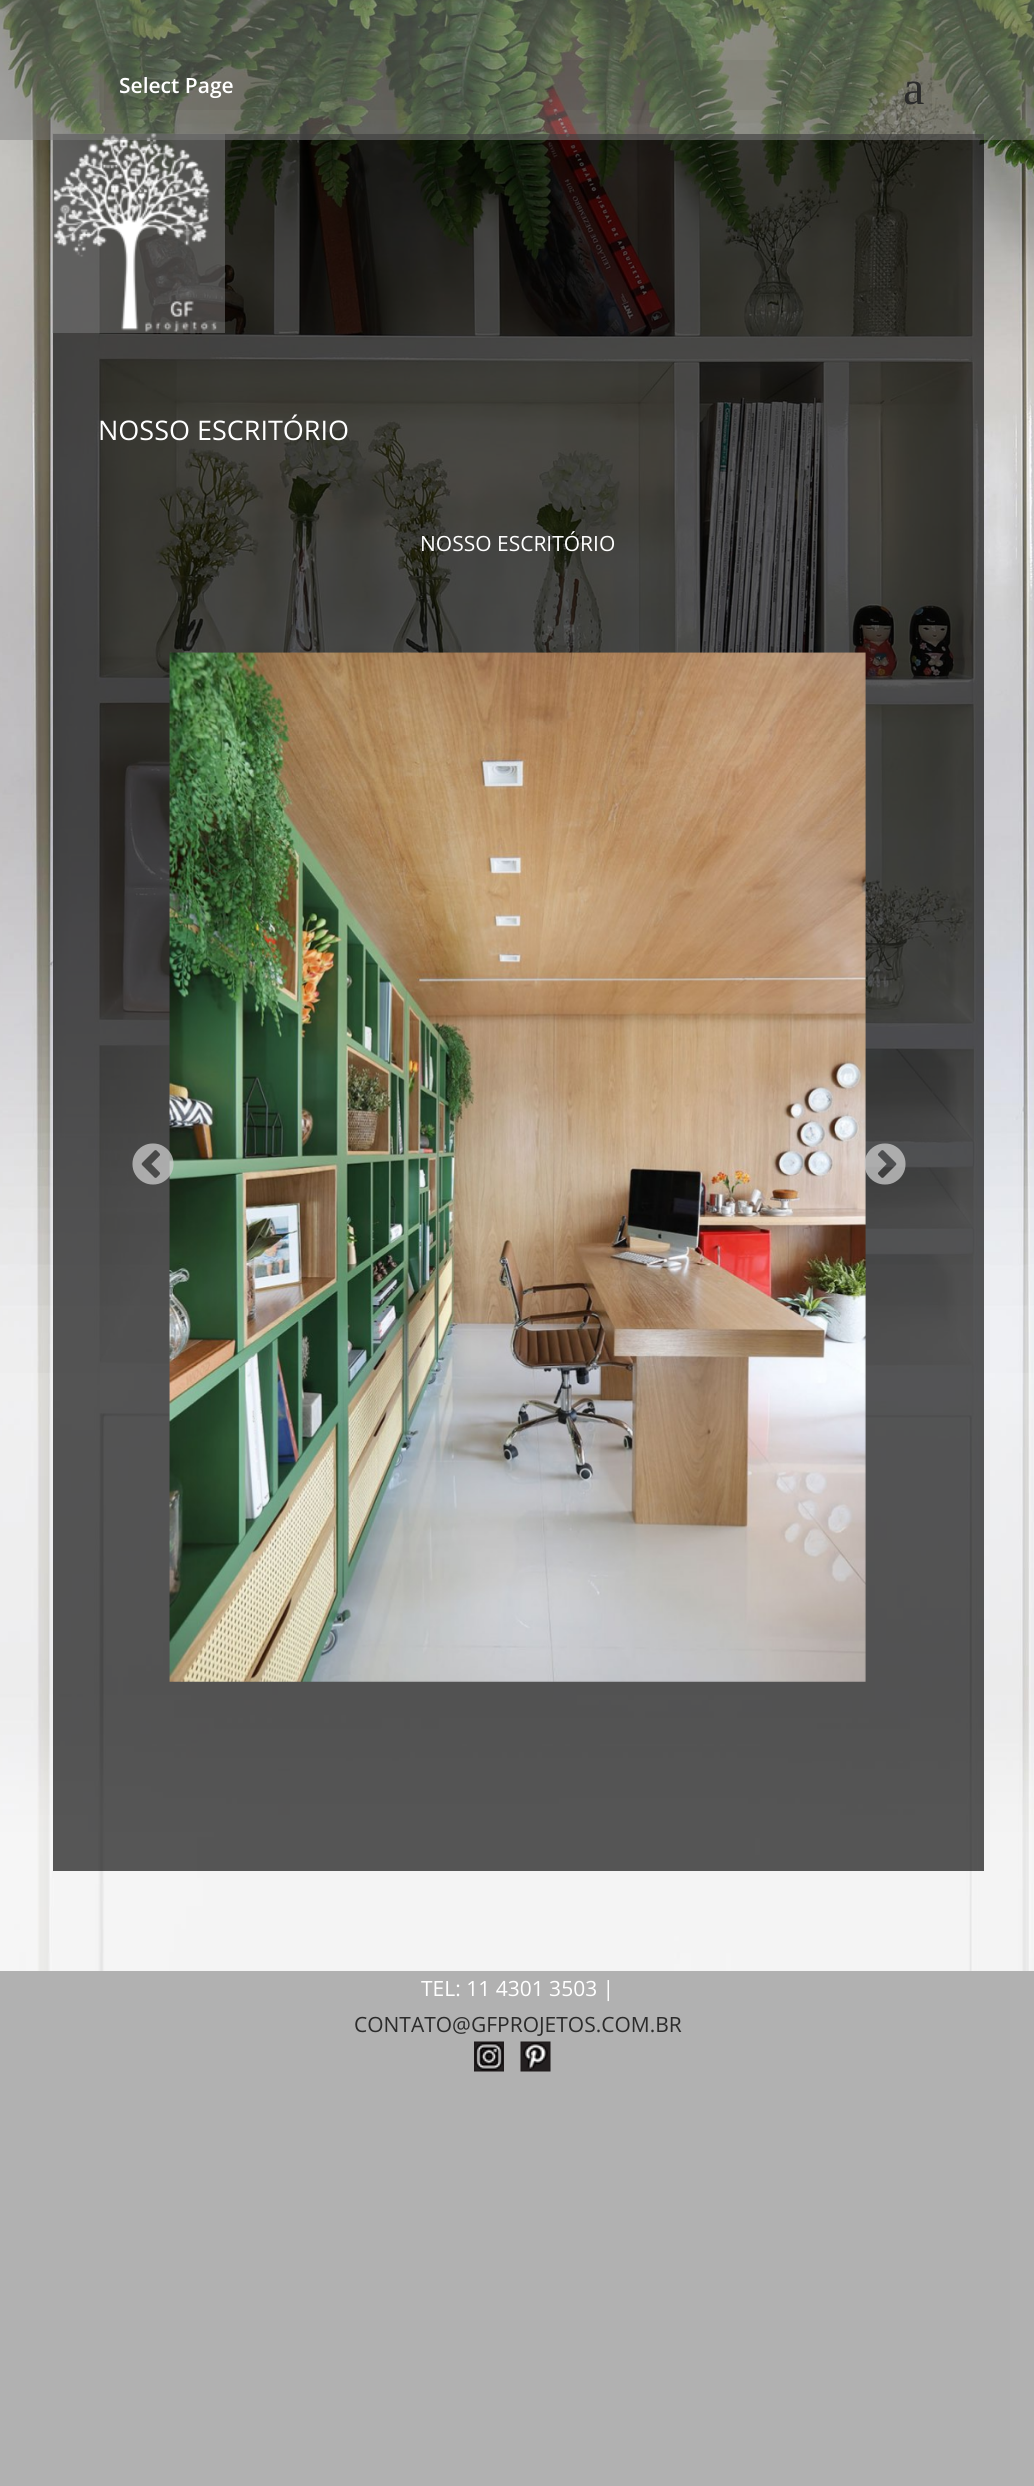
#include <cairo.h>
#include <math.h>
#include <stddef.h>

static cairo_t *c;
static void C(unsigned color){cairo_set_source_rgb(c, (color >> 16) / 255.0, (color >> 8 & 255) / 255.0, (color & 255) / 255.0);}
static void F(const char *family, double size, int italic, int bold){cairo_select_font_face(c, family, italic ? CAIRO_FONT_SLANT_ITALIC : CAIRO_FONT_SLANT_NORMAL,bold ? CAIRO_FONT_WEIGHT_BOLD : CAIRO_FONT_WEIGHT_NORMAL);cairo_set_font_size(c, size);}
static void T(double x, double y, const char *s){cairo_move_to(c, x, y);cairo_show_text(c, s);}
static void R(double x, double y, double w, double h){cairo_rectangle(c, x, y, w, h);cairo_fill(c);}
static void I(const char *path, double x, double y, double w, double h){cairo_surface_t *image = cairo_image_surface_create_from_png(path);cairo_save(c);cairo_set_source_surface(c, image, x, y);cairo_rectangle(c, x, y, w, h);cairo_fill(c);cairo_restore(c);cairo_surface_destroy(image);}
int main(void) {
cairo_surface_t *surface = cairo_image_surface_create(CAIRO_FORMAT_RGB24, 1034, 2486);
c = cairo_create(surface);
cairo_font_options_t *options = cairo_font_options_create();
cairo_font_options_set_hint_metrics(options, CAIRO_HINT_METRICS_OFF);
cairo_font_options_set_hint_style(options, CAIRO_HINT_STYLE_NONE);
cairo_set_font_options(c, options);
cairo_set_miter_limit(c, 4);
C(0xb1b1b1);
cairo_paint(c);
I("1.png",0,0,1034,1971);
cairo_set_source_rgba(c,0,0,0,0.65);
R(53,134,931,199);
I("2.png",52,133,173,200);
cairo_set_source_rgba(c,0.502,0.502,0.502,0.5);
R(0,0,1034,140);
cairo_set_source_rgba(c,0,0,0,0.05);
R(104,60,828,50);
F("Open Sans SemiBold",21,0,0);
C(0xffffff);
T(119,93,"Select Page");
F("Liberation Serif",48,0,0);
C(0x2b2b2b);
T(903,104,"a");
cairo_set_source_rgba(c,0,0,0,0.65);
R(53,333,931,1538);
F("Open Sans",27,0,0);
C(0xffffff);
T(98,440,"NOSSO ESCRITÓRIO");
F("Open Sans",21,0,0);
T(420,551,"NOSSO ESCRITÓRIO");
I("4.png",169,652,697,1030);
I("3.png",132,1143,42,42);
I("5.png",864,1143,42,42);
T(421,1996,"TEL: 11 4301 3503 |");
C(0x2b2b2b);
T(354,2032,"CONTATO@GFPROJETOS.COM.BR");
I("6.png",474,2041,30,31);
I("7.png",520,2041,31,31);
cairo_surface_write_to_png(surface, "o.png");
cairo_font_options_destroy(options);
cairo_destroy(c);
cairo_surface_destroy(surface);
return 0;
}
